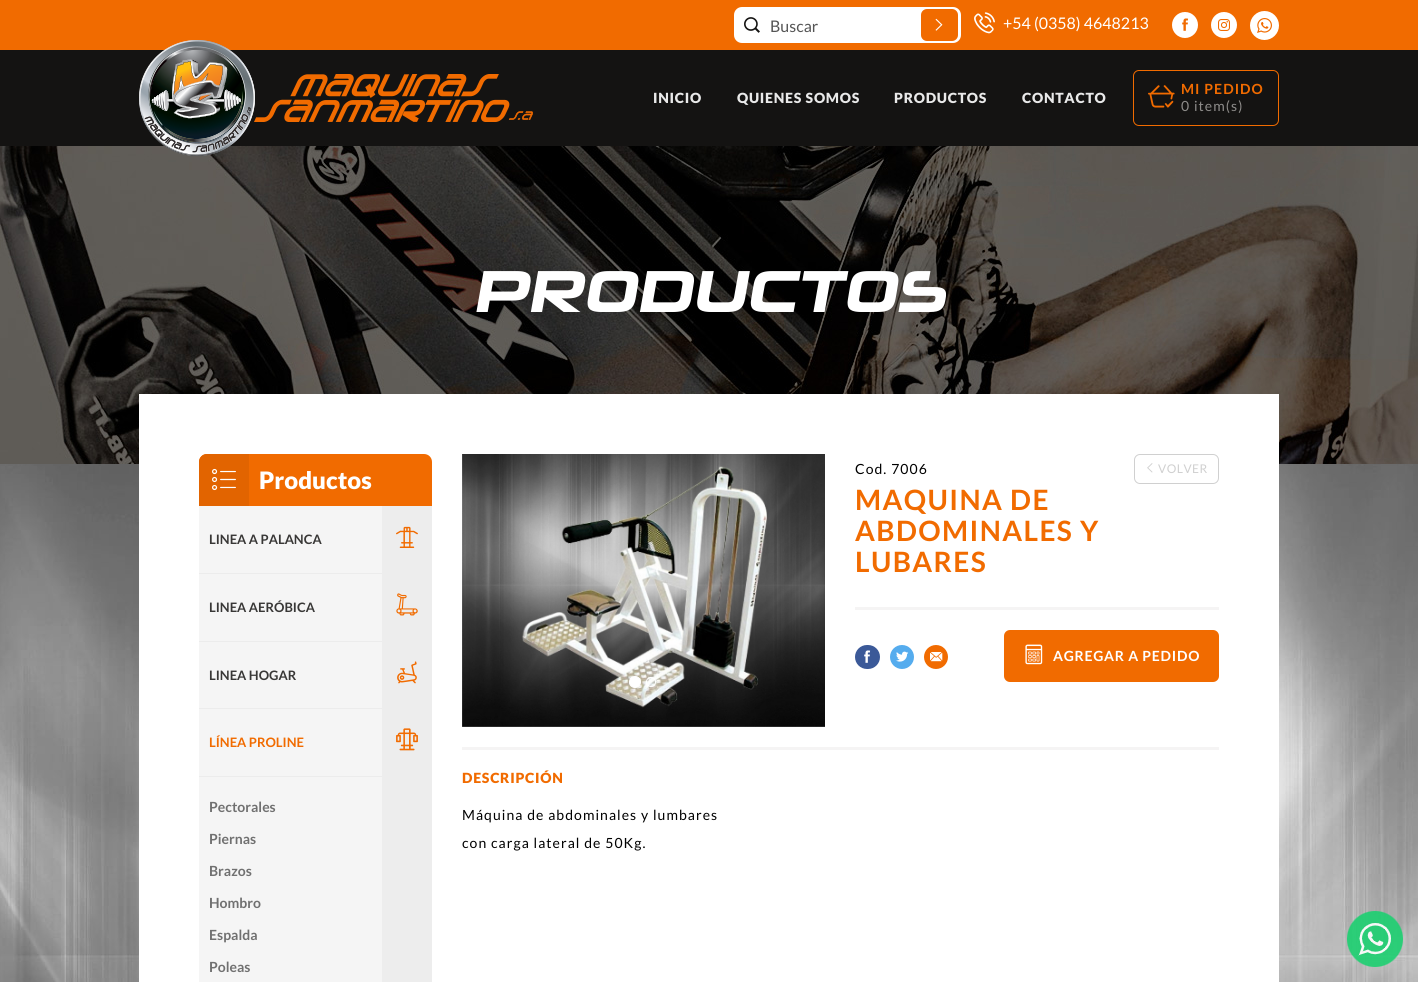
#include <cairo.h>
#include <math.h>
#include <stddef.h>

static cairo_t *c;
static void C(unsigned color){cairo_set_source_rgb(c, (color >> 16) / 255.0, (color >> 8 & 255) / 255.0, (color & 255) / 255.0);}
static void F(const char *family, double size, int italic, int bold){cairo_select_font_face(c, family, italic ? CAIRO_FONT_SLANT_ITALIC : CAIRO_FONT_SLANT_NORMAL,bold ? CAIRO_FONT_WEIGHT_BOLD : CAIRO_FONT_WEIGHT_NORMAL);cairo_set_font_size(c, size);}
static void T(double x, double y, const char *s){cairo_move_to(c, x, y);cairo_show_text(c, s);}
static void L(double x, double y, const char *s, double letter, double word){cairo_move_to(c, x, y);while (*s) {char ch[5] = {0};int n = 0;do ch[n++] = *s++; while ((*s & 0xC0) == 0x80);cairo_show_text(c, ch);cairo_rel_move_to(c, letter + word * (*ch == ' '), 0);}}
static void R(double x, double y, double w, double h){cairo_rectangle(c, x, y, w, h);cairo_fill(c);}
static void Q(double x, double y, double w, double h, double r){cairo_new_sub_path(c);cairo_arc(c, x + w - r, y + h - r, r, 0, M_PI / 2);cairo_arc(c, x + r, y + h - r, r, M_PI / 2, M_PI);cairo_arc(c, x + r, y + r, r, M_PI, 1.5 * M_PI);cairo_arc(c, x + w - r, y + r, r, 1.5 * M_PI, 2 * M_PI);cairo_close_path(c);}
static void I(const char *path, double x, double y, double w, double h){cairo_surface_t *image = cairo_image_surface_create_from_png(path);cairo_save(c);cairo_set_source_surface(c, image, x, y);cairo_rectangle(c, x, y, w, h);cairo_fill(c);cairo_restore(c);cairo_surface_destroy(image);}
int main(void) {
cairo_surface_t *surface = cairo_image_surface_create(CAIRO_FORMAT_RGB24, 1418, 982);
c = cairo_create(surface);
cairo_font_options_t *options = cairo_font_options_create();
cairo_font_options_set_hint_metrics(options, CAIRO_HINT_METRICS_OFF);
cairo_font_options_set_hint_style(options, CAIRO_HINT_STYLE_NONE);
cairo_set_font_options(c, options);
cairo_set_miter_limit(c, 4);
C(0xffffff);
cairo_paint(c);
C(0xf16b00);
R(0,0,1418,50);
C(0xffffff);
Q(734,7,227,36,8);
cairo_fill(c);
I("1.png",744,17,16,16);
F("Lato",16,0,0);
C(0x555555);
T(770,32,"Buscar");
C(0xf16b00);
Q(922,10,35,30,5);
cairo_fill_preserve(c);
cairo_stroke(c);
I("2.png",935,18,8,13);
I("3.png",974,12,21,22);
C(0xffffff);
T(1003,29,"+54 (0358) 4648213");
cairo_new_path(c);
cairo_arc(c,1185,25,12,0,2 * M_PI);
cairo_fill_preserve(c);
cairo_stroke(c);
I("4.png",1182,18,7,13);
cairo_arc(c,1224,25,12,0,2 * M_PI);
cairo_fill_preserve(c);
cairo_stroke(c);
I("5.png",1218,19,12,12);
cairo_arc(c,1264.5,25.5,13.5,0,2 * M_PI);
cairo_fill_preserve(c);
cairo_stroke(c);
I("6.png",1257,18,15,15);
C(0x141312);
R(0,50,1418,96);
I("10.png",0,146,1418,318);
I("7.png",139,40,394,116);
F("Lato Black",14,0,0);
C(0xe9e9e9);
L(653,103,"INICIO",.75,0);
L(737,103,"QUIENES SOMOS",.75,0);
L(894,103,"PRODUCTOS",.75,0);
L(1022,103,"CONTACTO",.75,0);
Q(1133.5,70.5,145,55,5.5);
C(0xf16b00);
cairo_set_line_width(c,1);
cairo_stroke(c);
I("8.png",1148,85,27,23);
F("Lato",14,0,1);
L(1181,94,"MI PEDIDO",1.05,0);
F("Lato",14,0,0);
C(0x8e8c8a);
L(1181,111,"0 item(s)",1.05,0);
I("9.png",0,464,1418,518);
F("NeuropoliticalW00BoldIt",60,0,1);
C(0xffffff);
T(473,312,"PRODUCTOS");
R(139,394,1140,588);
C(0xf16b00);
cairo_new_path(c);
cairo_move_to(c,207,454);
cairo_line_to(c,424,454);
cairo_curve_to(c,428.5,454,432,457.5,432,462);
cairo_line_to(c,432,506);
cairo_line_to(c,199,506);
cairo_line_to(c,199,462);
cairo_curve_to(c,199,457.5,202.5,454,207,454);
cairo_close_path(c);
cairo_fill(c);
C(0xe26400);
cairo_new_path(c);
cairo_move_to(c,207,454);
cairo_line_to(c,249,454);
cairo_line_to(c,249,506);
cairo_line_to(c,199,506);
cairo_line_to(c,199,462);
cairo_curve_to(c,199,457.5,202.5,454,207,454);
cairo_close_path(c);
cairo_fill(c);
I("11.png",212,468,24,23);
F("Lato Black",24,0,0);
C(0xffffff);
T(259,489,"Productos");
C(0xededed);
R(382,506,50,476);
C(0xf5f5f5);
R(199,506,183,67);
F("Lato",13,0,1);
C(0x383736);
T(209,544,"LINEA A PALANCA");
I("12.png",396,526,22,22);
C(0xf5f5f5);
R(199,574,183,67);
C(0xececec);
R(199,573,183,1);
C(0x383736);
T(209,612,"LINEA AERÓBICA");
I("13.png",396,593,22,23);
C(0xf5f5f5);
R(199,642,183,66);
C(0xececec);
R(199,641,183,1);
C(0x383736);
T(209,680,"LINEA HOGAR");
I("14.png",397,661,20,23);
C(0xf5f5f5);
R(199,709,183,273);
C(0xececec);
R(199,708,183,1);
C(0xf16b00);
T(209,747,"LÍNEA PROLINE");
I("15.png",396,728,22,23);
C(0xececec);
R(199,776,183,1);
F("Lato",14,0,1);
C(0x707070);
T(209,812,"Pectorales");
T(209,844,"Piernas");
T(209,876,"Brazos");
T(209,908,"Hombro");
T(209,940,"Espalda");
T(209,972,"Poleas");
I("16.png",462,454,363,273);
C(0xffffff);
cairo_arc(c,635,682,5.5,0,2 * M_PI);
cairo_fill_preserve(c);
cairo_stroke(c);
cairo_arc(c,651,682,4.5,0,2 * M_PI);
cairo_stroke(c);
F("Lato",14,0,0);
C(0x000000);
L(855,474,"Cod. 7006",1.05,0);
Q(1134.5,454.5,84,29,5.5);
C(0xd0d0d0);
cairo_stroke(c);
I("17.png",1147,463,6,10);
F("Lato",12,0,0);
L(1158,473,"VOLVER",.5,0);
F("Lato",28,0,1);
C(0xf16b00);
L(855,510,"MAQUINA DE",1.4,0);
L(855,541,"ABDOMINALES Y",1.4,0);
L(855,572,"LUBARES",1.4,0);
C(0xf5f4f4);
R(855,607,364,3);
C(0x3b5998);
Q(856,646,23,22,11);
cairo_fill_preserve(c);
cairo_set_line_width(c,2);
cairo_stroke(c);
I("18.png",864,650,7,13);
C(0x55acee);
cairo_arc(c,902,657,11,0,2 * M_PI);
cairo_fill_preserve(c);
cairo_stroke(c);
I("19.png",896,651,13,11);
C(0xf16b00);
cairo_arc(c,936,657,11,0,2 * M_PI);
cairo_fill_preserve(c);
cairo_stroke(c);
I("20.png",930,652,13,10);
Q(1005,631,213,50,5);
cairo_fill_preserve(c);
cairo_stroke(c);
I("21.png",1025,644,18,21);
F("Lato",14,0,1);
C(0xffffff);
L(1053,661,"AGREGAR A PEDIDO",.75,0);
C(0xf5f4f4);
R(462,747,757,3);
F("Lato Black",14,0,0);
C(0xf16b00);
L(462,783,"DESCRIPCIÓN",.75,0);
F("Lato",14,0,0);
C(0x000000);
L(462,820,"Máquina de abdominales y lumbares",1.05,0);
L(462,848,"con carga lateral de 50Kg.",1.05,0);
I("22.png",1347,911,56,56);
cairo_surface_write_to_png(surface, "o.png");
cairo_font_options_destroy(options);
cairo_destroy(c);
cairo_surface_destroy(surface);
return 0;
}
